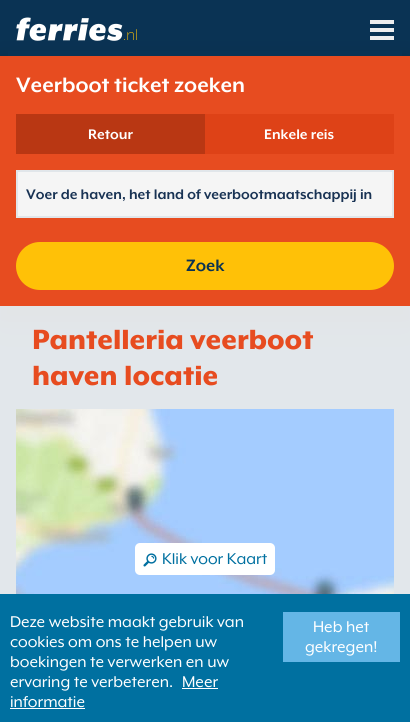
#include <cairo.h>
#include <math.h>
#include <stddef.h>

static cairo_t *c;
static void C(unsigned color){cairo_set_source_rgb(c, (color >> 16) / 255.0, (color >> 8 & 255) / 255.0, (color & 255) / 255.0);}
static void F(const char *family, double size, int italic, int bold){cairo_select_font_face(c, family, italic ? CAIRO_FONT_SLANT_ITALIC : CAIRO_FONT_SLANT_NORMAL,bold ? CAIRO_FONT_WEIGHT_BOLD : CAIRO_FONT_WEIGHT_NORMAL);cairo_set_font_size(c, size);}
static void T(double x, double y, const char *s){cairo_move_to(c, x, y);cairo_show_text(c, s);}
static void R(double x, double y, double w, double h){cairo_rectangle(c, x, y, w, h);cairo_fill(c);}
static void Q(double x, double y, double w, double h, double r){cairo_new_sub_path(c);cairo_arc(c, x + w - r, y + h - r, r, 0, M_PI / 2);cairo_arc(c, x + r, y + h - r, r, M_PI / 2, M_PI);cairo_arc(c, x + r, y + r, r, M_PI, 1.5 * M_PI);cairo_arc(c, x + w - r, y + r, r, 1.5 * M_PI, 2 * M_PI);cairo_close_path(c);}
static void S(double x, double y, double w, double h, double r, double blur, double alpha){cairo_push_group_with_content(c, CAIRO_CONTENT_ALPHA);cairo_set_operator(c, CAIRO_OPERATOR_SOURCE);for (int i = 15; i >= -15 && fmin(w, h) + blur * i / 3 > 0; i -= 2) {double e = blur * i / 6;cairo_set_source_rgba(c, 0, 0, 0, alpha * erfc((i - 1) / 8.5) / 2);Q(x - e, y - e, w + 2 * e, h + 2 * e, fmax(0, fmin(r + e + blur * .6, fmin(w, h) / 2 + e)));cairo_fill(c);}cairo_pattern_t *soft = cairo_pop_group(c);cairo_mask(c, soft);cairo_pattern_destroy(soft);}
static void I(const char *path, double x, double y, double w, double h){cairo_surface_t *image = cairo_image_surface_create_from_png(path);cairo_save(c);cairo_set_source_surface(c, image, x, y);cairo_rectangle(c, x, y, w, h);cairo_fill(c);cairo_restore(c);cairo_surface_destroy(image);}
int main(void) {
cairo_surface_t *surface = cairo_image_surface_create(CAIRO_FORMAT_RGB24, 410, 722);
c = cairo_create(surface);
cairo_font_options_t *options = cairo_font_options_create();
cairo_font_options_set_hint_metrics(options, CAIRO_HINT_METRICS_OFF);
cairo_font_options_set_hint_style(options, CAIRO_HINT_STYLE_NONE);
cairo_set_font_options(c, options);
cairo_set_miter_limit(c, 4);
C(0x0a3354);
cairo_paint(c);
C(0x000000);
S(0,71,410,250,0,6,.22);
S(0,75,410,250,0,19,.3);
C(0x0a3354);
R(8,51,394,5);
I("1.png",16,17,107,24);
F("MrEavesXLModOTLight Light",18,0,0);
C(0xffc107);
T(123,40,".nl");
C(0xeeeeee);
R(370,20,24,4);
R(370,28,24,4);
R(370,36,24,4);
C(0xe74c20);
R(0,56,410,250);
F("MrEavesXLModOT",24,0,1);
C(0xffffff);
T(16,92,"Veerboot ticket zoeken");
C(0xb93713);
R(16,114,189,40);
F("MrEavesXLModOT",16,0,1);
C(0xffffff);
T(88,139,"Retour");
C(0xde4217);
R(205,114,189,40);
C(0xffffff);
T(264,139,"Enkele reis");
C(0xf5f5f5);
cairo_rectangle(c,17,171,376,46);
cairo_fill_preserve(c);
C(0xe1e6ea);
cairo_stroke(c);
cairo_save(c);
cairo_rectangle(c,26,186,358,16);
cairo_clip(c);
C(0x193354);
T(26,199,"Voer de haven, het land of veerbootmaatschappij in");
cairo_restore(c);
C(0xffc107);
Q(16,242,378,48,24);
cairo_fill(c);
F("MrEavesXLModOT",19,0,1);
C(0x0a3252);
T(186,271,"Zoek");
cairo_set_source_rgba(c,1,1,1,0.88);
R(0,306,410,288);
F("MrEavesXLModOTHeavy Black",32,0,0);
C(0xe74c20);
T(32,349,"Pantelleria veerboot");
T(32,385,"haven locatie");
I("2.png",16,409,378,185);
C(0xffffff);
Q(135,543,140,32,5);
cairo_fill(c);
I("3.png",143,553,14,14);
F("MrEavesXLModOT",18,0,0);
C(0x0070a0);
T(162,564,"Klik voor Kaart");
R(0,594,410,128);
C(0xffffff);
T(10,627,"Deze website maakt gebruik van");
T(10,647,"cookies om ons te helpen uw");
T(10,667,"boekingen te verwerken en uw");
T(10,687,"ervaring te verbeteren.");
T(182,687,"Meer");
R(182,688,36,1);
T(10,707,"informatie");
R(10,708,75,1);
C(0x64b6e6);
R(283,612,117,50);
C(0xffffff);
T(313,632,"Heb het");
T(305,652,"gekregen!");
cairo_surface_write_to_png(surface, "o.png");
cairo_font_options_destroy(options);
cairo_destroy(c);
cairo_surface_destroy(surface);
return 0;
}
